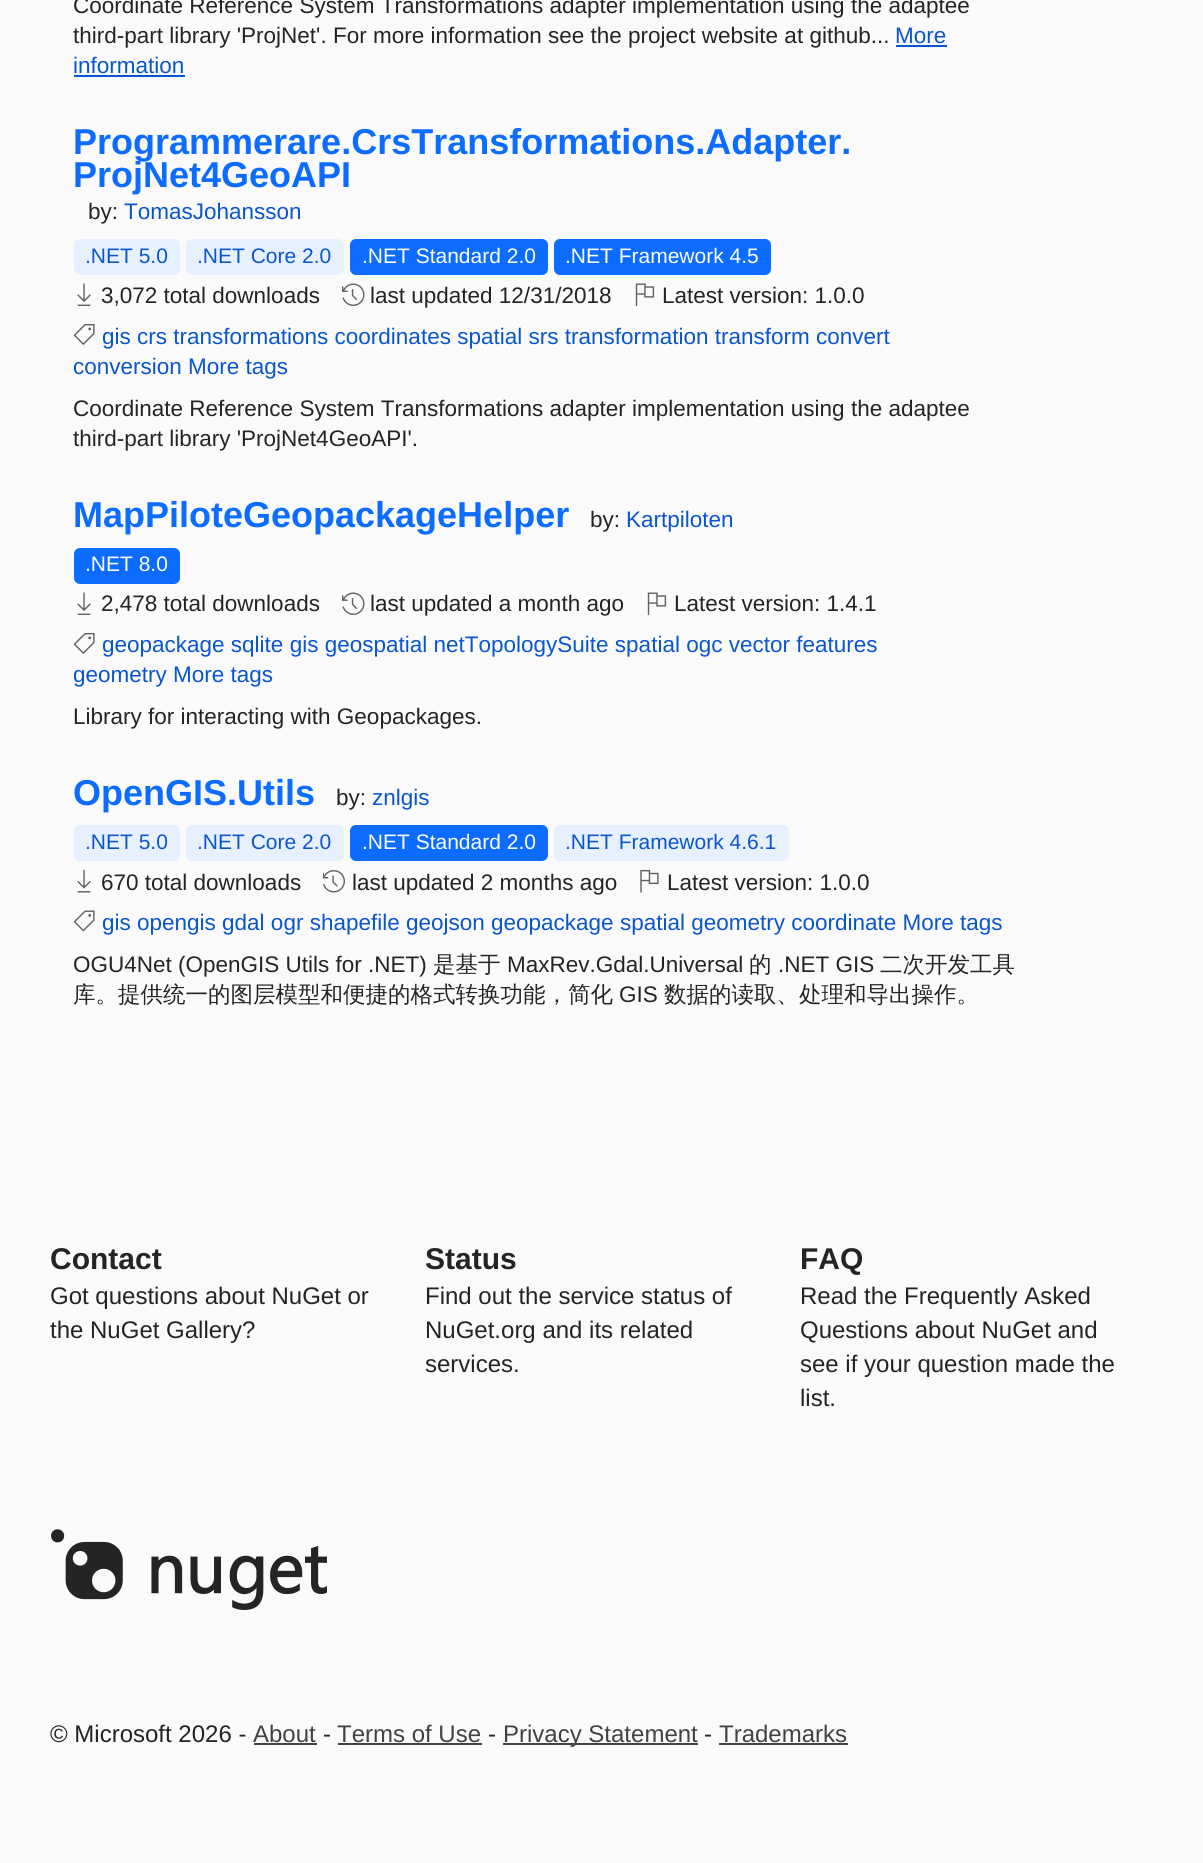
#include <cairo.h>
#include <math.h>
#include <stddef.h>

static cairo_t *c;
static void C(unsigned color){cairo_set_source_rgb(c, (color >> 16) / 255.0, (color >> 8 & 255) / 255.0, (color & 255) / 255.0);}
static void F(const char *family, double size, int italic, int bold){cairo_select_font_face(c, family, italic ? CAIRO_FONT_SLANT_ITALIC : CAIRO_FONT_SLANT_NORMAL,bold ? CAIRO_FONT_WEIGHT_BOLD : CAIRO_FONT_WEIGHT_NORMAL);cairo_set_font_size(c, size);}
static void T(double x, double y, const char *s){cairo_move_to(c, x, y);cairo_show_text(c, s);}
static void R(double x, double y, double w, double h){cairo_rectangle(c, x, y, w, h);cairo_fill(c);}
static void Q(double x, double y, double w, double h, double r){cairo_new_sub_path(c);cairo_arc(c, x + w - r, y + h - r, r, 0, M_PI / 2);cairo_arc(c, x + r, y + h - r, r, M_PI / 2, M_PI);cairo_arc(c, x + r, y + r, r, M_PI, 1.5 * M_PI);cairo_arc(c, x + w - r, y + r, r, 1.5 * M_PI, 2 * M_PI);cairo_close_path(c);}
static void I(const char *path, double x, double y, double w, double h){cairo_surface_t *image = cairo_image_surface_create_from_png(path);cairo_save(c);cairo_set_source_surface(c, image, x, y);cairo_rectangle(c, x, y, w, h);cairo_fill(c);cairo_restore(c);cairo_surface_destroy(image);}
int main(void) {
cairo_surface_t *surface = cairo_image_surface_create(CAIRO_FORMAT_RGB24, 1203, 1863);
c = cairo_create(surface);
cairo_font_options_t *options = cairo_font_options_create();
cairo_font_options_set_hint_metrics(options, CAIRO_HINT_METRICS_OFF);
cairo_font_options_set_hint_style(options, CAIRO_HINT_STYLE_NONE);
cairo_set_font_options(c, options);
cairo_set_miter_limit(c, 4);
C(0xfafafa);
cairo_paint(c);
F("Liberation Sans",22.5,0,0);
C(0x242424);
T(73,13,"Coordinate Reference System Transformations adapter implementation using the adaptee");
T(73,43,"third-part library 'ProjNet'. For more information see the project website at github...");
C(0x0956cc);
T(895,43,"More");
R(896,45,51,2);
T(73,73,"information");
R(74,75,111,2);
F("Liberation Sans",36,0,1);
C(0x0b6cff);
T(73,154,"Programmerare.CrsTransformations.Adapter.");
T(73,187,"ProjNet4GeoAPI");
F("Liberation Sans",22.5,0,0);
C(0x242424);
T(88,219,"by:");
C(0x0956cc);
T(124,219,"TomasJohansson");
C(0xe7f0ff);
Q(74,239,106,36,6);
cairo_fill(c);
F("Liberation Sans",21,0,0);
C(0x0956cc);
T(85,263,".NET 5.0");
C(0xe7f0ff);
Q(186,239,158,36,6);
cairo_fill(c);
C(0x0956cc);
T(197,263,".NET Core 2.0");
C(0x0b6cff);
Q(350,239,198,36,6);
cairo_fill(c);
C(0xffffff);
T(362,263,".NET Standard 2.0");
C(0x0b6cff);
Q(554,239,217,36,6);
cairo_fill(c);
C(0xffffff);
T(565,263,".NET Framework 4.5");
I("1.png",77,283,14,23);
F("Liberation Sans",22.5,0,0);
C(0x242424);
T(101,303,"3,072 total downloads");
I("2.png",342,283,23,23);
T(370,303,"last updated 12/31/2018");
I("3.png",635,283,20,23);
T(662,303,"Latest version: 1.0.0");
I("4.png",73,324,22,21);
C(0x0956cc);
T(102,344,"gis crs transformations coordinates spatial srs transformation transform convert");
T(73,374,"conversion More tags");
C(0x242424);
T(73,416,"Coordinate Reference System Transformations adapter implementation using the adaptee");
T(73,446,"third-part library 'ProjNet4GeoAPI'.");
F("Liberation Sans",36,0,1);
C(0x0b6cff);
T(73,527,"MapPiloteGeopackageHelper");
F("Liberation Sans",22.5,0,0);
C(0x242424);
T(590,527,"by:");
C(0x0956cc);
T(626,527,"Kartpiloten");
C(0x0b6cff);
Q(74,548,106,36,6);
cairo_fill(c);
F("Liberation Sans",21,0,0);
C(0xffffff);
T(85,571,".NET 8.0");
I("1.png",77,592,14,23);
F("Liberation Sans",22.5,0,0);
C(0x242424);
T(101,611,"2,478 total downloads");
I("2.png",342,592,23,23);
T(370,611,"last updated a month ago");
I("3.png",647,592,20,23);
T(674,611,"Latest version: 1.4.1");
I("4.png",73,633,22,21);
C(0x0956cc);
T(102,652,"geopackage sqlite gis geospatial netTopologySuite spatial ogc vector features");
T(73,682,"geometry More tags");
C(0x242424);
T(73,724,"Library for interacting with Geopackages.");
F("Liberation Sans",36,0,1);
C(0x0b6cff);
T(73,805,"OpenGIS.Utils");
F("Liberation Sans",22.5,0,0);
C(0x242424);
T(336,805,"by:");
C(0x0956cc);
T(372,805,"znlgis");
C(0xe7f0ff);
Q(74,825,106,36,6);
cairo_fill(c);
F("Liberation Sans",21,0,0);
C(0x0956cc);
T(85,849,".NET 5.0");
C(0xe7f0ff);
Q(186,825,158,36,6);
cairo_fill(c);
C(0x0956cc);
T(197,849,".NET Core 2.0");
C(0x0b6cff);
Q(350,825,198,36,6);
cairo_fill(c);
C(0xffffff);
T(362,849,".NET Standard 2.0");
C(0xe7f0ff);
Q(554,825,235,36,6);
cairo_fill(c);
C(0x0956cc);
T(565,849,".NET Framework 4.6.1");
I("5.png",77,870,14,23);
F("Liberation Sans",22.5,0,0);
C(0x242424);
T(101,890,"670 total downloads");
I("6.png",323,870,22,23);
T(352,890,"last updated 2 months ago");
I("7.png",640,870,19,23);
T(667,890,"Latest version: 1.0.0");
I("8.png",73,910,22,22);
C(0x0956cc);
T(102,930,"gis opengis gdal ogr shapefile geojson geopackage spatial geometry coordinate More tags");
C(0x242424);
T(73,972,"OGU4Net (OpenGIS Utils for .NET)");
F("WenQuanYi Zen Hei Medium",22.5,0,0);
T(433,972,"是基于");
F("Liberation Sans",22.5,0,0);
T(507,972,"MaxRev.Gdal.Universal");
F("WenQuanYi Zen Hei Medium",22.5,0,0);
T(749,972,"的");
F("Liberation Sans",22.5,0,0);
T(778,972,".NET GIS");
F("WenQuanYi Zen Hei Medium",22.5,0,0);
T(880,972,"二次开发工具");
T(73,1002,"库。提供统一的图层模型和便捷的格式转换功能，简化");
F("Liberation Sans",22.5,0,0);
T(619,1002,"GIS");
F("WenQuanYi Zen Hei Medium",22.5,0,0);
T(664,1002,"数据的读取、处理和导出操作。");
F("Liberation Sans",30,0,1);
T(50,1269,"Contact");
F("Liberation Sans",24,0,0);
T(50,1304,"Got questions about NuGet or");
T(50,1338,"the NuGet Gallery?");
F("Liberation Sans",30,0,1);
T(425,1269,"Status");
F("Liberation Sans",24,0,0);
T(425,1304,"Find out the service status of");
T(425,1338,"NuGet.org and its related");
T(425,1372,"services.");
F("Liberation Sans",30,0,1);
T(800,1269,"FAQ");
F("Liberation Sans",24,0,0);
T(800,1304,"Read the Frequently Asked");
T(800,1338,"Questions about NuGet and");
T(800,1372,"see if your question made the");
T(800,1406,"list.");
I("9.png",51,1529,276,81);
T(50,1742,"© Microsoft 2026 -");
C(0x424242);
T(253,1742,"About");
R(254,1743,63,2);
C(0x242424);
T(323,1742,"-");
C(0x424242);
T(337,1742,"Terms of Use");
R(338,1743,144,2);
C(0x242424);
T(488,1742,"-");
C(0x424242);
R(503,1743,195,2);
T(503,1742,"Privacy Statement");
C(0x242424);
T(704,1742,"-");
C(0x424242);
T(719,1742,"Trademarks");
R(719,1743,129,2);
cairo_surface_write_to_png(surface, "o.png");
cairo_font_options_destroy(options);
cairo_destroy(c);
cairo_surface_destroy(surface);
return 0;
}
